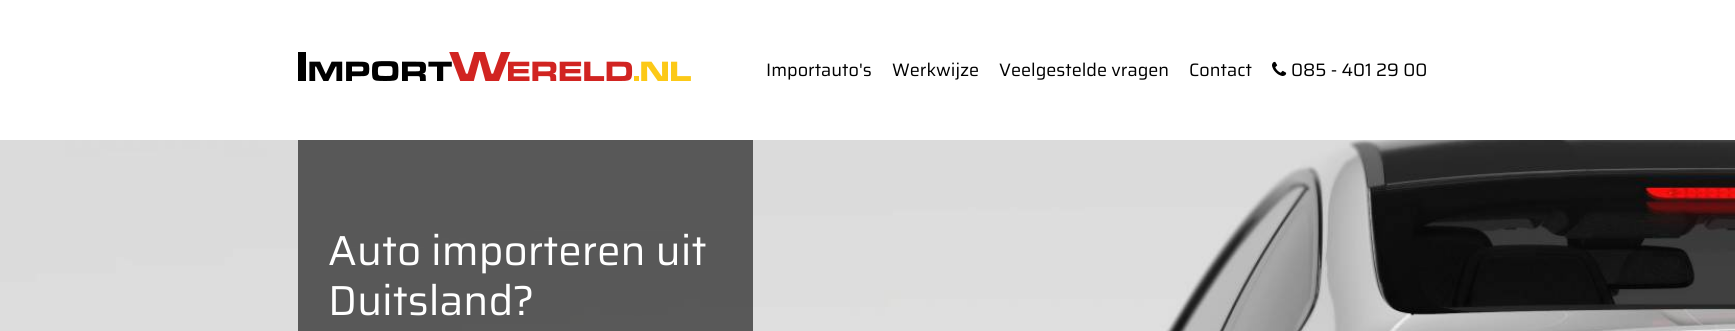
#include <cairo.h>
#include <math.h>
#include <stddef.h>

static cairo_t *c;
static void C(unsigned color){cairo_set_source_rgb(c, (color >> 16) / 255.0, (color >> 8 & 255) / 255.0, (color & 255) / 255.0);}
static void F(const char *family, double size, int italic, int bold){cairo_select_font_face(c, family, italic ? CAIRO_FONT_SLANT_ITALIC : CAIRO_FONT_SLANT_NORMAL,bold ? CAIRO_FONT_WEIGHT_BOLD : CAIRO_FONT_WEIGHT_NORMAL);cairo_set_font_size(c, size);}
static void T(double x, double y, const char *s){cairo_move_to(c, x, y);cairo_show_text(c, s);}
static void R(double x, double y, double w, double h){cairo_rectangle(c, x, y, w, h);cairo_fill(c);}
static void I(const char *path, double x, double y, double w, double h){cairo_surface_t *image = cairo_image_surface_create_from_png(path);cairo_save(c);cairo_set_source_surface(c, image, x, y);cairo_rectangle(c, x, y, w, h);cairo_fill(c);cairo_restore(c);cairo_surface_destroy(image);}
int main(void) {
cairo_surface_t *surface = cairo_image_surface_create(CAIRO_FORMAT_RGB24, 1735, 331);
c = cairo_create(surface);
cairo_font_options_t *options = cairo_font_options_create();
cairo_font_options_set_hint_metrics(options, CAIRO_HINT_METRICS_OFF);
cairo_font_options_set_hint_style(options, CAIRO_HINT_STYLE_NONE);
cairo_set_font_options(c, options);
cairo_set_miter_limit(c, 4);
C(0xffffff);
cairo_paint(c);
I("1.png",298,52,393,29);
F("Saira",18,0,0);
C(0x000000);
T(766,76,"Importauto's");
T(892,76,"Werkwijze");
T(999,76,"Veelgestelde vragen");
T(1189,76,"Contact");
I("2.png",1272,61,15,15);
T(1291,76,"085 - 401 29 00");
I("3.png",0,140,1735,191);
cairo_set_source_rgba(c,0,0,0,0.6);
R(298,140,455,191);
F("Saira",42,0,0);
C(0xffffff);
T(328,265,"Auto importeren uit");
T(328,315,"Duitsland?");
cairo_surface_write_to_png(surface, "o.png");
cairo_font_options_destroy(options);
cairo_destroy(c);
cairo_surface_destroy(surface);
return 0;
}
